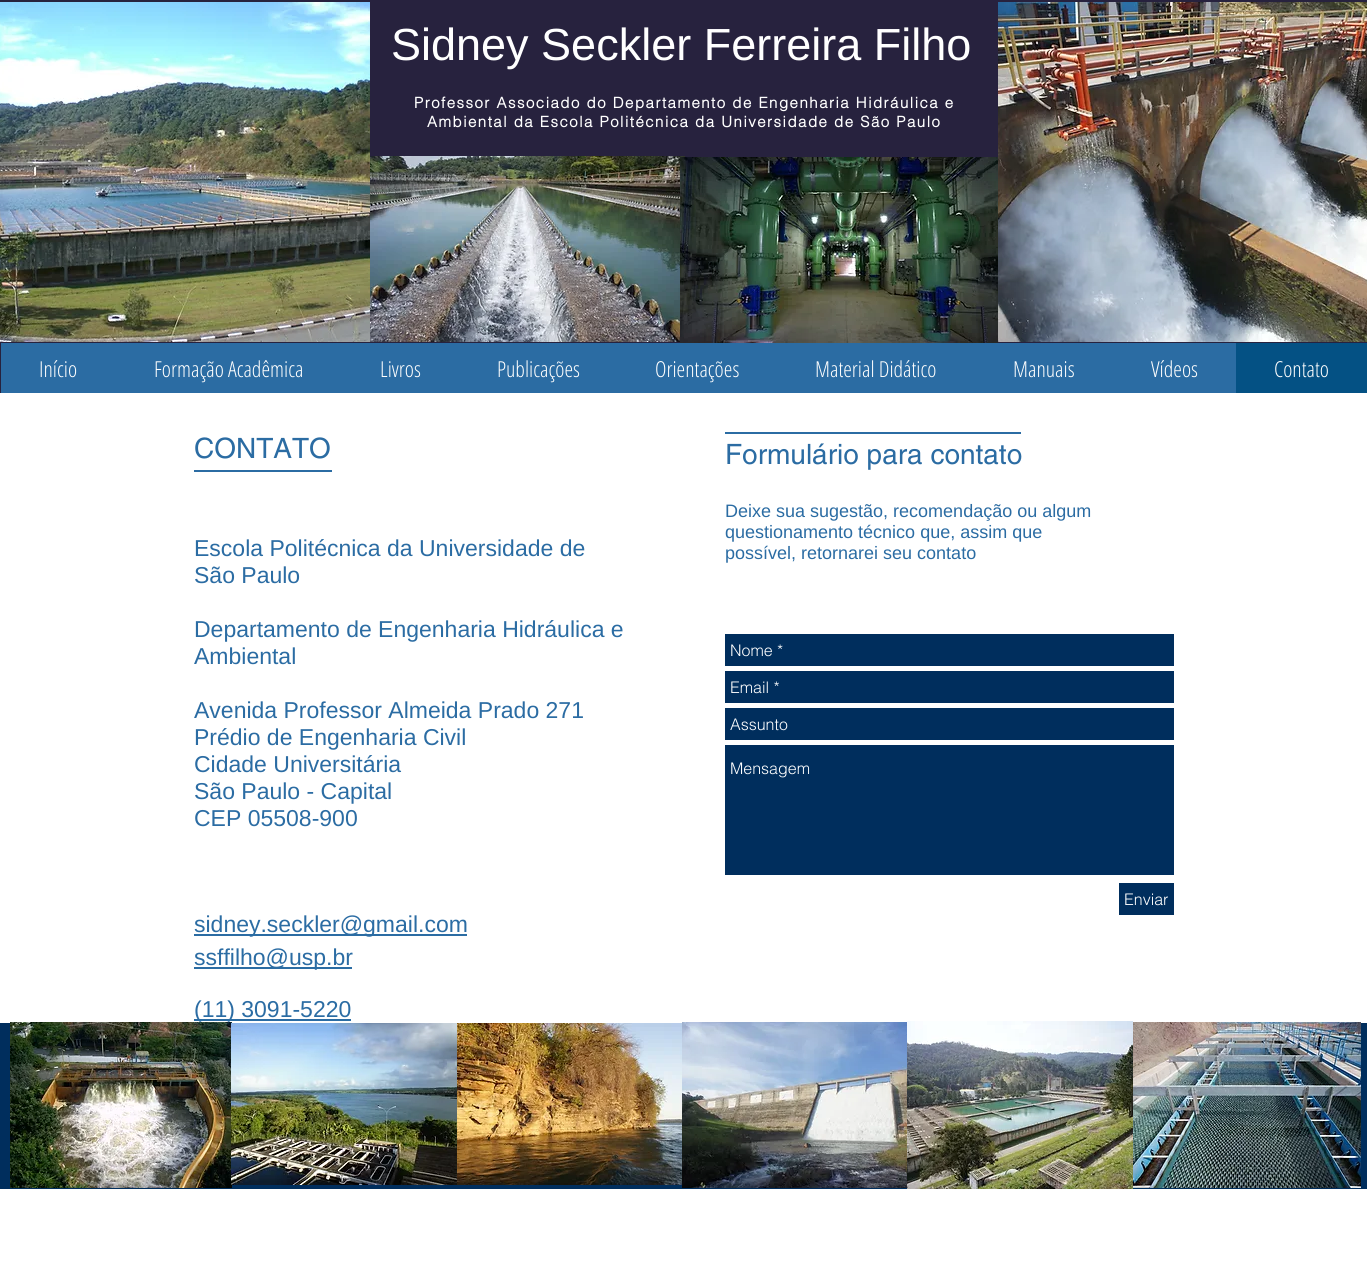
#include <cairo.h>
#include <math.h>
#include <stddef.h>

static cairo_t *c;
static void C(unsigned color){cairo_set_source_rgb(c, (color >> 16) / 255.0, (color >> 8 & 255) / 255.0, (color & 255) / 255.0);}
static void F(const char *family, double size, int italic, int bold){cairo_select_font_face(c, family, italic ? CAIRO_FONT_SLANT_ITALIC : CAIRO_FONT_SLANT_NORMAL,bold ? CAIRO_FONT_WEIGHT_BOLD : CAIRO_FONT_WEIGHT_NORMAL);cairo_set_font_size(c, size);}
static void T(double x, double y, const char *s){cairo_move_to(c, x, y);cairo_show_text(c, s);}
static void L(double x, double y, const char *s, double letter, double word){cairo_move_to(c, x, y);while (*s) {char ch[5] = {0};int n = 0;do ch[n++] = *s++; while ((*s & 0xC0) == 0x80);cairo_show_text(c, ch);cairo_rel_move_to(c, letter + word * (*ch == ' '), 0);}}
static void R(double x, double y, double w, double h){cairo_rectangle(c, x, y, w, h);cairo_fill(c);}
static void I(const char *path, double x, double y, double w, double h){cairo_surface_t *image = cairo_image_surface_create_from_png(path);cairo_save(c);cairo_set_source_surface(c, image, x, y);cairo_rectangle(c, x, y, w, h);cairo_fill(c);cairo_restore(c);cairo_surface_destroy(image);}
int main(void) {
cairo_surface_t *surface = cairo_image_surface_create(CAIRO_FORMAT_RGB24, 1367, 1272);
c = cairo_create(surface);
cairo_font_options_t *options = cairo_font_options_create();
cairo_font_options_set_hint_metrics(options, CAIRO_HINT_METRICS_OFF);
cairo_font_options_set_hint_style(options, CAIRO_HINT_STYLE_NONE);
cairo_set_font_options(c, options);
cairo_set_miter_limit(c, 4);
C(0xffffff);
cairo_paint(c);
C(0x27223e);
R(0,0,1367,393);
I("1.png",0,2,370,340);
F("Liberation Sans",45,0,0);
C(0xffffff);
T(391,60,"Sidney Seckler Ferreira Filho");
I("2.png",998,2,369,340);
F("helvetica",15,0,1);
L(414,108,"Professor Associado do Departamento de Engenharia Hidráulica e",1.5,0);
L(427,127,"Ambiental da Escola Politécnica da Universidade de São Paulo",1.5,0);
I("3.png",370,156,315,186);
I("4.png",680,157,318,186);
C(0x2b6ca3);
R(1,343,1235,50);
F("Open Sans Condensed Light",22,0,0);
C(0xffffff);
T(39,377,"Início");
T(154,377,"Formação Acadêmica");
T(380,377,"Livros");
T(497,377,"Publicações");
T(655,377,"Orientações");
T(815,377,"Material Didático");
T(1013,377,"Manuais");
T(1151,377,"Vídeos");
C(0x045184);
R(1236,343,131,50);
C(0xffffff);
T(1274,377,"Contato");
F("helvetica",28,0,0);
C(0x2b6ca3);
T(194,458,"CONTATO");
R(194,470,138,2);
R(725,432,296,2);
T(725,464,"Formulário para contato");
F("Liberation Sans",18,0,0);
T(725,517,"Deixe sua sugestão, recomendação ou algum");
T(725,538,"questionamento técnico que, assim que");
T(725,559,"possível, retornarei seu contato");
F("Liberation Sans",23,0,0);
T(194,556,"Escola Politécnica da Universidade de");
T(194,583,"São Paulo");
T(194,637,"Departamento de Engenharia Hidráulica e");
T(194,664,"Ambiental");
T(194,718,"Avenida Professor Almeida Prado 271");
T(194,745,"Prédio de Engenharia Civil");
T(194,772,"Cidade Universitária");
T(194,799,"São Paulo - Capital");
T(194,826,"CEP 05508-900");
C(0x002e5d);
R(725,634,449,32);
F("helvetica Light",16,0,0);
C(0xffffff);
T(730,656,"Nome *");
C(0x002e5d);
R(725,671,449,32);
C(0xffffff);
T(730,693,"Email *");
C(0x002e5d);
R(725,708,449,32);
C(0xffffff);
T(730,730,"Assunto");
C(0x002e5d);
R(725,745,449,130);
C(0xffffff);
T(730,774,"Mensagem");
C(0x002e5d);
R(1119,883,55,32);
C(0xffffff);
T(1124,905,"Enviar");
C(0x2b6ca3);
R(194,934,273,2);
F("Liberation Sans",23,0,0);
T(194,932,"sidney.seckler@gmail.com");
R(194,967,158,2);
T(194,965,"ssffilho@usp.br");
R(194,1019,157,2);
T(194,1017,"(11) 3091-5220");
C(0x002e5d);
R(0,1023,1367,166);
I("5.png",10,1022,222,166);
I("6.png",231,1023,226,162);
I("7.png",457,1023,225,162);
I("8.png",682,1022,225,166);
I("9.png",907,1021,226,168);
I("10.png",1133,1022,228,166);
cairo_surface_write_to_png(surface, "o.png");
cairo_font_options_destroy(options);
cairo_destroy(c);
cairo_surface_destroy(surface);
return 0;
}
